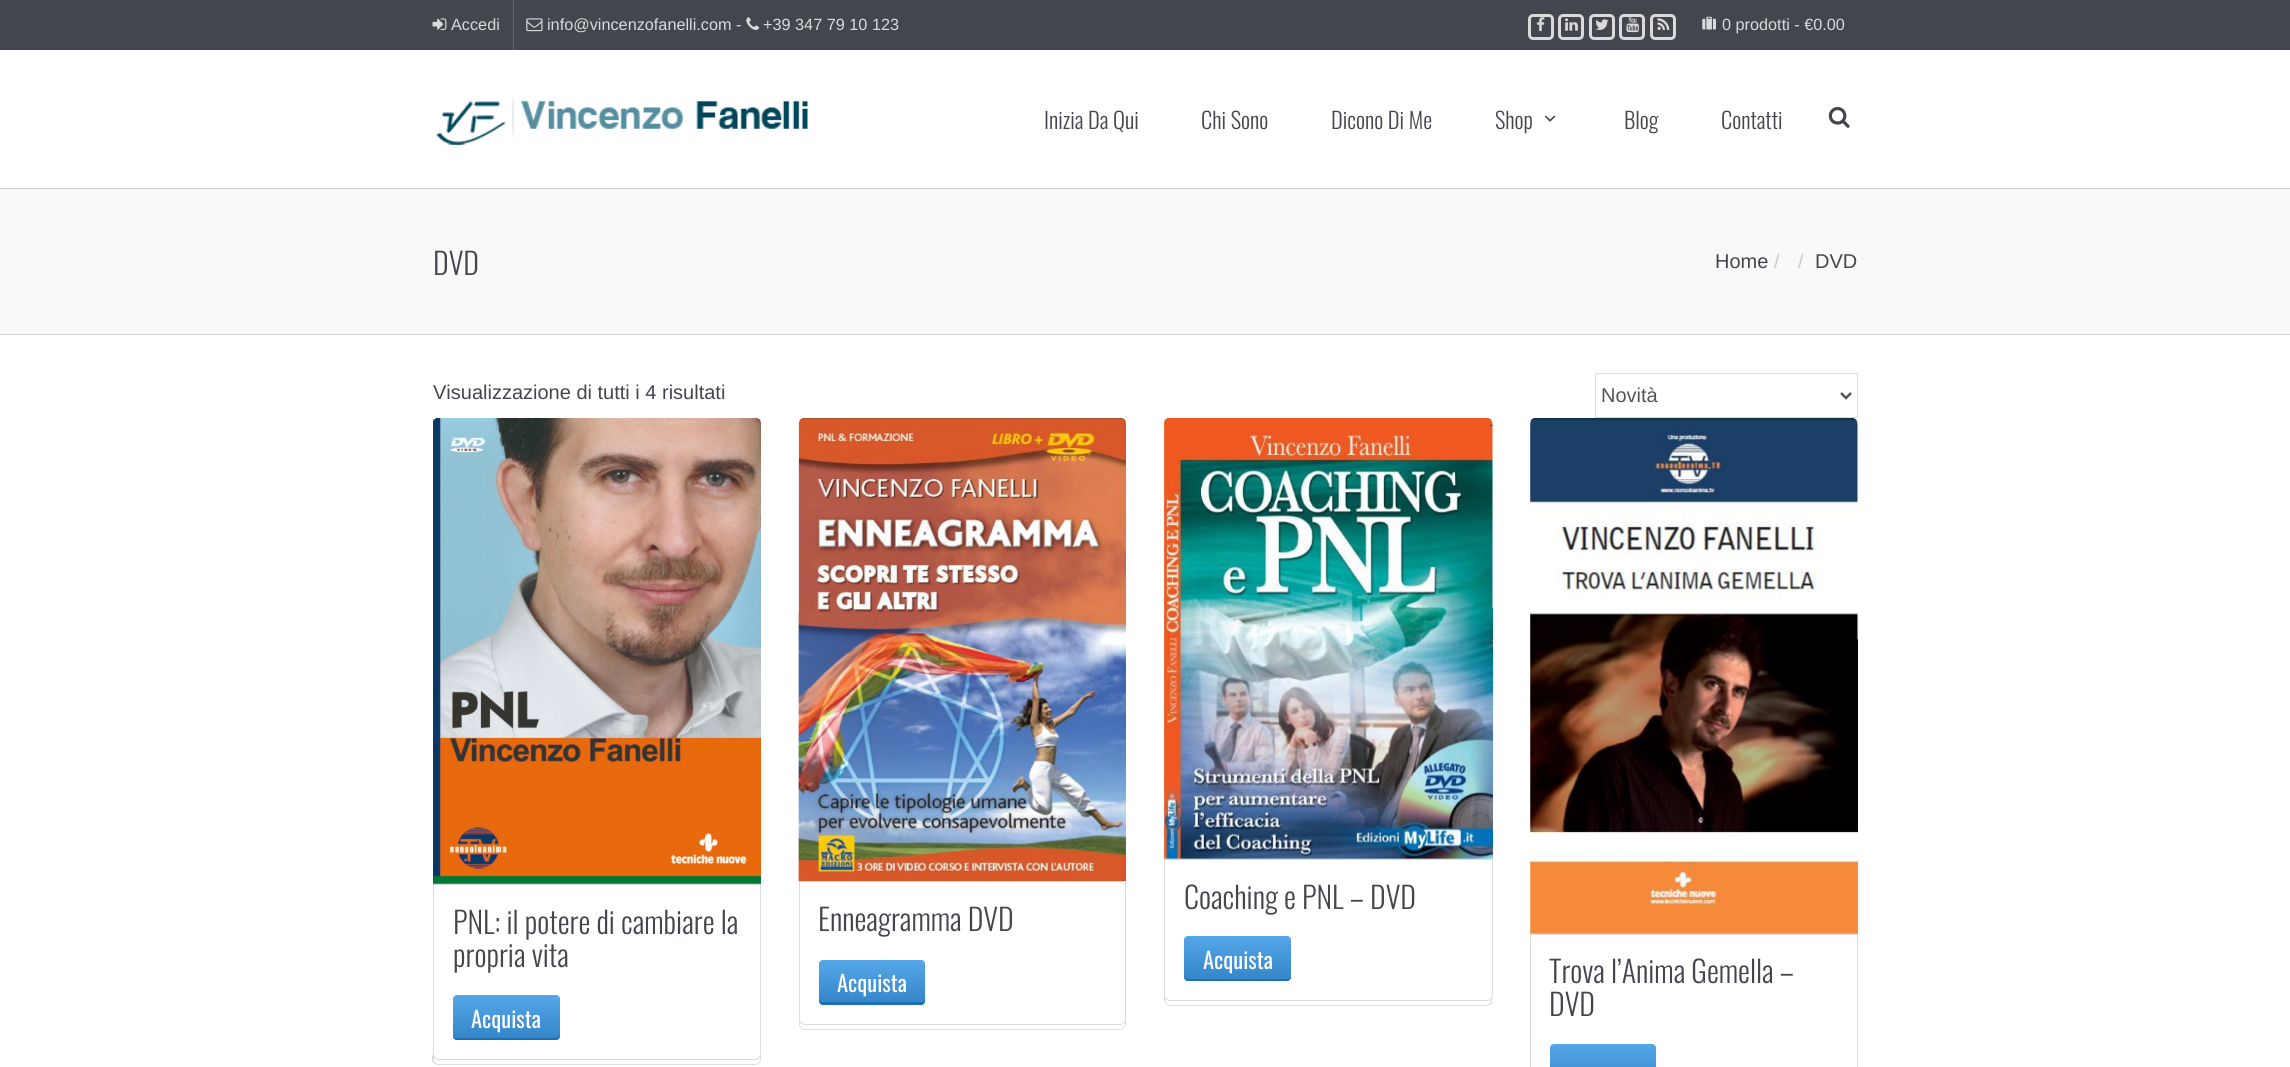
#include <cairo.h>
#include <math.h>
#include <stddef.h>

static cairo_t *c;
static void C(unsigned color){cairo_set_source_rgb(c, (color >> 16) / 255.0, (color >> 8 & 255) / 255.0, (color & 255) / 255.0);}
static void F(const char *family, double size, int italic, int bold){cairo_select_font_face(c, family, italic ? CAIRO_FONT_SLANT_ITALIC : CAIRO_FONT_SLANT_NORMAL,bold ? CAIRO_FONT_WEIGHT_BOLD : CAIRO_FONT_WEIGHT_NORMAL);cairo_set_font_size(c, size);}
static void T(double x, double y, const char *s){cairo_move_to(c, x, y);cairo_show_text(c, s);}
static void R(double x, double y, double w, double h){cairo_rectangle(c, x, y, w, h);cairo_fill(c);}
static void Q(double x, double y, double w, double h, double r){cairo_new_sub_path(c);cairo_arc(c, x + w - r, y + h - r, r, 0, M_PI / 2);cairo_arc(c, x + r, y + h - r, r, M_PI / 2, M_PI);cairo_arc(c, x + r, y + r, r, M_PI, 1.5 * M_PI);cairo_arc(c, x + w - r, y + r, r, 1.5 * M_PI, 2 * M_PI);cairo_close_path(c);}
static void I(const char *path, double x, double y, double w, double h){cairo_surface_t *image = cairo_image_surface_create_from_png(path);cairo_save(c);cairo_set_source_surface(c, image, x, y);cairo_rectangle(c, x, y, w, h);cairo_fill(c);cairo_restore(c);cairo_surface_destroy(image);}
int main(void) {
cairo_surface_t *surface = cairo_image_surface_create(CAIRO_FORMAT_RGB24, 2290, 1067);
c = cairo_create(surface);
cairo_font_options_t *options = cairo_font_options_create();
cairo_font_options_set_hint_metrics(options, CAIRO_HINT_METRICS_OFF);
cairo_font_options_set_hint_style(options, CAIRO_HINT_STYLE_NONE);
cairo_set_font_options(c, options);
cairo_set_miter_limit(c, 4);
cairo_pattern_t *gradient;
C(0xffffff);
cairo_paint(c);
C(0x43474d);
R(0,0,2290,50);
I("1.png",432,18,15,12);
F("Liberation Sans",16.25,0,0);
C(0xdadada);
T(451,30,"Accedi");
C(0x616469);
R(513,0,1,50);
I("2.png",526,18,17,14);
C(0xdadada);
T(547,30,"info@vincenzofanelli.com -");
I("3.png",746,17,13,13);
T(763,30,"+39 347 79 10 123");
Q(1529.5,15.5,23,23,3.5);
cairo_set_line_width(c,3);
cairo_stroke(c);
I("4.png",1537,17,8,15);
Q(1559.5,15.5,23,23,3.5);
cairo_stroke(c);
I("5.png",1565,18,13,13);
Q(1590.5,15.5,23,23,3.5);
cairo_stroke(c);
I("6.png",1595,19,14,11);
Q(1620.5,15.5,23,23,3.5);
cairo_stroke(c);
I("7.png",1626,17,13,16);
Q(1651.5,15.5,23,23,3.5);
cairo_stroke(c);
I("8.png",1657,18,13,12);
I("9.png",1702,16,14,14);
T(1722,30,"0 prodotti - €0.00");
I("10.png",436,96,372,49);
F("Oswald Light",22.5,0,0);
C(0x43474d);
T(1044,129,"Inizia Da Qui");
T(1201,129,"Chi Sono");
T(1331,129,"Dicono Di Me");
T(1495,129,"Shop");
I("11.png",1544,115,12,7);
T(1624,129,"Blog");
T(1721,129,"Contatti");
I("12.png",1828,107,22,21);
C(0xf9f9f9);
R(0,189,2290,145);
C(0xd1d1d1);
R(0,188,2290,1);
R(0,334,2290,1);
F("Oswald Light",30,0,0);
C(0x43474d);
T(433,275,"DVD");
F("Liberation Sans",20,0,0);
T(1715,268,"Home");
C(0xcccccc);
T(1774,268,"/");
T(1798,268,"/");
C(0x43474d);
T(1815,268,"DVD");
T(433,399,"Visualizzazione di tutti i 4 risultati");
cairo_rectangle(c,1595.5,373.5,262,44);
C(0xdcdcdc);
cairo_set_line_width(c,1);
cairo_stroke(c);
cairo_new_path(c);
cairo_move_to(c,1841,393);
cairo_line_to(c,1846,398);
cairo_line_to(c,1851,393);
C(0x555555);
cairo_set_line_width(c,2.5);
cairo_stroke(c);
T(1601,402,"Novità");
I("13.png",433,418,328,466);
C(0xdcdcdc);
cairo_set_fill_rule(c,CAIRO_FILL_RULE_EVEN_ODD);
cairo_new_path(c);
cairo_move_to(c,432,1055);
cairo_line_to(c,761,1055);
cairo_line_to(c,761,1059);
cairo_curve_to(c,761,1062,758,1065,755,1065);
cairo_line_to(c,439,1065);
cairo_curve_to(c,435,1065,432,1062,432,1059);
cairo_close_path(c);
cairo_move_to(c,434,1055);
cairo_line_to(c,760,1055);
cairo_line_to(c,760,1059);
cairo_curve_to(c,760,1062,758,1064,755,1064);
cairo_line_to(c,439,1064);
cairo_curve_to(c,436,1064,434,1062,434,1059);
cairo_close_path(c);
cairo_fill(c);
C(0xffffff);
cairo_new_path(c);
cairo_move_to(c,433.5,884.5);
cairo_line_to(c,760.5,884.5);
cairo_line_to(c,760.5,1054);
cairo_curve_to(c,760.5,1057,758,1059.5,755,1059.5);
cairo_line_to(c,439,1059.5);
cairo_curve_to(c,436,1059.5,433.5,1057,433.5,1054);
cairo_close_path(c);
cairo_fill_preserve(c);
C(0xdcdcdc);
cairo_set_line_width(c,1);
cairo_stroke(c);
F("Oswald Light",30,0,0);
C(0x43474d);
T(453,934,"PNL: il potere di cambiare la");
T(453,967,"propria vita");
gradient = cairo_pattern_create_linear(506,995,506,1040);
cairo_pattern_add_color_stop_rgba(gradient,0,0.337,0.655,0.918,1);
cairo_pattern_add_color_stop_rgba(gradient,1,0.204,0.518,0.784,1);
cairo_set_source(c,gradient);
cairo_pattern_destroy(gradient);
Q(453,995,107,45,4);
cairo_fill(c);
C(0x1e70b5);
cairo_set_fill_rule(c,CAIRO_FILL_RULE_WINDING);
cairo_new_path(c);
cairo_move_to(c,453,1037);
cairo_curve_to(c,453,1038,455,1040,457,1040);
cairo_line_to(c,556,1040);
cairo_curve_to(c,558,1040,560,1038,560,1036);
cairo_line_to(c,560,1034);
cairo_line_to(c,559,1037);
cairo_line_to(c,556,1038);
cairo_line_to(c,456,1038);
cairo_close_path(c);
cairo_fill(c);
F("Oswald",22.5,0,0);
C(0xffffff);
T(471,1028,"Acquista");
I("14.png",798,418,328,464);
C(0xdcdcdc);
cairo_set_fill_rule(c,CAIRO_FILL_RULE_EVEN_ODD);
cairo_new_path(c);
cairo_move_to(c,799,1020);
cairo_line_to(c,1126,1020);
cairo_line_to(c,1126,1024);
cairo_curve_to(c,1126,1027,1123,1030,1120,1030);
cairo_line_to(c,805,1030);
cairo_curve_to(c,802,1030,799,1027,799,1024);
cairo_close_path(c);
cairo_move_to(c,800,1020);
cairo_line_to(c,1125,1020);
cairo_line_to(c,1125,1024);
cairo_curve_to(c,1125,1027,1123,1029,1120,1029);
cairo_line_to(c,805,1029);
cairo_curve_to(c,802,1029,800,1027,800,1024);
cairo_close_path(c);
cairo_fill(c);
C(0xffffff);
cairo_new_path(c);
cairo_move_to(c,799.5,881.5);
cairo_line_to(c,1125.5,881.5);
cairo_line_to(c,1125.5,1019);
cairo_curve_to(c,1125.5,1022,1123,1024.5,1120,1024.5);
cairo_line_to(c,805,1024.5);
cairo_curve_to(c,802,1024.5,799.5,1022,799.5,1019);
cairo_close_path(c);
cairo_fill_preserve(c);
C(0xdcdcdc);
cairo_stroke(c);
F("Oswald Light",30,0,0);
C(0x43474d);
T(818,931,"Enneagramma DVD");
gradient = cairo_pattern_create_linear(872,960,872,1005);
cairo_pattern_add_color_stop_rgba(gradient,0,0.337,0.655,0.918,1);
cairo_pattern_add_color_stop_rgba(gradient,1,0.204,0.518,0.784,1);
cairo_set_source(c,gradient);
cairo_pattern_destroy(gradient);
Q(819,960,106,45,4);
cairo_fill(c);
C(0x1e70b5);
cairo_set_fill_rule(c,CAIRO_FILL_RULE_WINDING);
cairo_new_path(c);
cairo_move_to(c,819,999);
cairo_line_to(c,819,1001);
cairo_curve_to(c,819,1003,821,1005,823,1005);
cairo_line_to(c,921,1005);
cairo_curve_to(c,923,1005,925,1003,925,1001);
cairo_line_to(c,925,999);
cairo_curve_to(c,925,1001,923,1002,921,1002);
cairo_line_to(c,822,1002);
cairo_curve_to(c,820,1002,819,1001,819,999);
cairo_close_path(c);
cairo_fill(c);
F("Oswald",22.5,0,0);
C(0xffffff);
T(837,992,"Acquista");
I("15.png",1164,418,329,441);
C(0xdcdcdc);
cairo_set_fill_rule(c,CAIRO_FILL_RULE_EVEN_ODD);
cairo_new_path(c);
cairo_move_to(c,1164,996);
cairo_line_to(c,1492,996);
cairo_line_to(c,1492,1000);
cairo_curve_to(c,1492,1003,1490,1006,1486,1006);
cairo_line_to(c,1170,1006);
cairo_curve_to(c,1167,1006,1164,1003,1164,1000);
cairo_close_path(c);
cairo_move_to(c,1165,996);
cairo_line_to(c,1491,996);
cairo_line_to(c,1491,1000);
cairo_curve_to(c,1491,1003,1489,1005,1486,1005);
cairo_line_to(c,1170,1005);
cairo_curve_to(c,1167,1005,1165,1003,1165,1000);
cairo_close_path(c);
cairo_fill(c);
C(0xffffff);
cairo_new_path(c);
cairo_move_to(c,1164.5,859.5);
cairo_line_to(c,1492.5,859.5);
cairo_line_to(c,1492.5,995);
cairo_curve_to(c,1492.5,998,1490,1000.5,1487,1000.5);
cairo_line_to(c,1170,1000.5);
cairo_curve_to(c,1167,1000.5,1164.5,998,1164.5,995);
cairo_close_path(c);
cairo_fill_preserve(c);
C(0xdcdcdc);
cairo_stroke(c);
F("Oswald Light",30,0,0);
C(0x43474d);
T(1184,909,"Coaching e PNL – DVD");
gradient = cairo_pattern_create_linear(1238,936,1238,981);
cairo_pattern_add_color_stop_rgba(gradient,0,0.337,0.655,0.918,1);
cairo_pattern_add_color_stop_rgba(gradient,1,0.204,0.518,0.784,1);
cairo_set_source(c,gradient);
cairo_pattern_destroy(gradient);
Q(1184,936,107,45,4);
cairo_fill(c);
C(0x1e70b5);
cairo_set_fill_rule(c,CAIRO_FILL_RULE_WINDING);
cairo_new_path(c);
cairo_move_to(c,1184,975);
cairo_line_to(c,1184,977);
cairo_curve_to(c,1184,979,1186,981,1188,981);
cairo_line_to(c,1287,981);
cairo_curve_to(c,1289,981,1291,979,1291,977);
cairo_line_to(c,1291,975);
cairo_curve_to(c,1291,977,1290,979,1288,979);
cairo_line_to(c,1188,979);
cairo_curve_to(c,1185,979,1184,977,1184,975);
cairo_close_path(c);
cairo_fill(c);
F("Oswald",22.5,0,0);
C(0xffffff);
T(1203,969,"Acquista");
I("16.png",1530,418,328,516);
cairo_rectangle(c,1530.5,934.5,327,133);
C(0xdcdcdc);
cairo_stroke(c);
F("Oswald Light",30,0,0);
C(0x43474d);
T(1549,983,"Trova l’Anima Gemella –");
T(1549,1016,"DVD");
gradient = cairo_pattern_create_linear(1603,1044,1603,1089);
cairo_pattern_add_color_stop_rgba(gradient,0,0.337,0.655,0.918,1);
cairo_pattern_add_color_stop_rgba(gradient,1,0.204,0.518,0.784,1);
cairo_set_source(c,gradient);
cairo_pattern_destroy(gradient);
Q(1550,1044,106,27,4);
cairo_fill(c);
cairo_surface_write_to_png(surface, "o.png");
cairo_font_options_destroy(options);
cairo_destroy(c);
cairo_surface_destroy(surface);
return 0;
}
